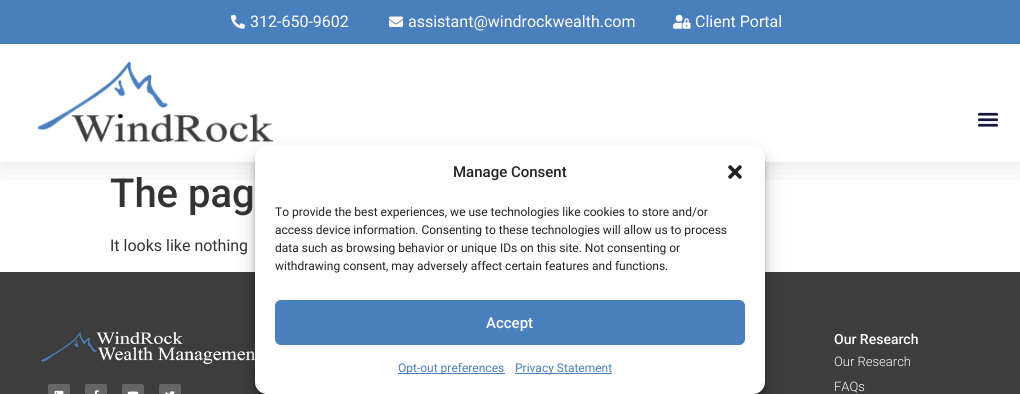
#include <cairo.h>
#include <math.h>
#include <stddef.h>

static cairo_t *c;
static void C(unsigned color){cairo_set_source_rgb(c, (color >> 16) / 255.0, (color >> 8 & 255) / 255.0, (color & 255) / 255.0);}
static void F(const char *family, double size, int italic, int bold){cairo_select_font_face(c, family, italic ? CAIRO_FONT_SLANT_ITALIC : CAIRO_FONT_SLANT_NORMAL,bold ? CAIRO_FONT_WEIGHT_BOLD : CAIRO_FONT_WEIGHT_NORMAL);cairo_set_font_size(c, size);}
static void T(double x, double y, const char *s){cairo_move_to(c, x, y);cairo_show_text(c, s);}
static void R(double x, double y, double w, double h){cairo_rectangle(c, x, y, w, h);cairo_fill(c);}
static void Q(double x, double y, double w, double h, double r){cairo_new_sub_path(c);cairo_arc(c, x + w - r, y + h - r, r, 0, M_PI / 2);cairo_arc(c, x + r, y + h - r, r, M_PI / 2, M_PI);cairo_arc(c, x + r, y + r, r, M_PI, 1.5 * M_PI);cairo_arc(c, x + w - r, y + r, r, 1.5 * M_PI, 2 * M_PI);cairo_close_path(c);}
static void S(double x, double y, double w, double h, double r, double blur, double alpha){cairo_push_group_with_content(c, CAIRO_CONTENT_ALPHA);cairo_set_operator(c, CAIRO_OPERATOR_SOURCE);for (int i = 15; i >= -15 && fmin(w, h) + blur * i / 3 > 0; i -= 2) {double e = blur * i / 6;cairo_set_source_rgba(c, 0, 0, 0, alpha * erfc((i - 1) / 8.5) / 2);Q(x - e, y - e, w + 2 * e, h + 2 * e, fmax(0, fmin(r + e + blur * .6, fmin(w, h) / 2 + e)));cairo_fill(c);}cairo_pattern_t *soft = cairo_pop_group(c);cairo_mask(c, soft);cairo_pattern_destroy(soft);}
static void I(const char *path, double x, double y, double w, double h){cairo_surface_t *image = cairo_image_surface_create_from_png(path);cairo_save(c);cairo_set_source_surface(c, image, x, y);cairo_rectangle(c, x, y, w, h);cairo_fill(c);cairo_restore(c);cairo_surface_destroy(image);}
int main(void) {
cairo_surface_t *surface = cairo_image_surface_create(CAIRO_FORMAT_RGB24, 1020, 394);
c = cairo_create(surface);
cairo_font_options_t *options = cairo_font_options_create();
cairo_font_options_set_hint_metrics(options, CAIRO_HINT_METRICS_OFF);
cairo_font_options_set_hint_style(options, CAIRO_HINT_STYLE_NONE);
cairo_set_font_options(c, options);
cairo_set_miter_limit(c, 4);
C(0xffffff);
cairo_paint(c);
cairo_save(c);
cairo_rectangle(c,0,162,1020,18);
cairo_clip(c);
C(0x000000);
S(0,5,1020,162,0,15,.1);
cairo_restore(c);
C(0x4a7fbe);
R(0,0,1020,44);
I("1.png",231,14,14,15);
F("Roboto",16,0,0);
C(0xffffff);
T(250,27,"312-650-9602");
I("2.png",389,16,14,11);
T(408,27,"assistant@windrockwealth.com");
I("3.png",673,14,18,15);
T(695,27,"Client Portal");
I("4.png",38,62,235,80);
I("5.png",977,112,22,15);
F("Roboto Medium",40,0,0);
C(0x333333);
T(110,207,"The pag");
F("Roboto",16,0,0);
T(110,251,"It looks like nothing");
C(0x3c3d3c);
R(0,272,1020,122);
I("7.png",41,332,214,32);
C(0x000000);
S(255,152,510,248,12,3,.23);
S(255,156,510,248,12,10,.19);
C(0xffffff);
Q(255,146,510,248,12);
cairo_fill(c);
F("Roboto Medium",15,0,0);
C(0x222222);
T(453,177,"Manage Consent");
I("6.png",728,165,14,14);
F("Roboto",12,0,0);
T(275,216,"To provide the best experiences, we use technologies like cookies to store and/or");
T(275,234,"access device information. Consenting to these technologies will allow us to process");
T(275,252,"data such as browsing behavior or unique IDs on this site. Not consenting or");
T(275,270,"withdrawing consent, may adversely affect certain features and functions.");
C(0x4a7fbe);
Q(275.5,300.5,469,44,5.5);
cairo_fill_preserve(c);
cairo_set_line_width(c,1);
cairo_stroke(c);
F("Roboto Medium",15,0,0);
C(0xffffff);
T(486,328,"Accept");
C(0x4a7fbe);
R(398,373,107,1);
F("Roboto",12,0,0);
T(398,372,"Opt-out preferences");
R(515,373,97,1);
T(515,372,"Privacy Statement");
C(0x656665);
Q(48,384,22,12,2);
cairo_fill(c);
I("8.png",54,390,10,4);
Q(85,384,22,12,2);
cairo_fill(c);
I("9.png",94,390,5,4);
Q(122,384,22,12,2);
cairo_fill(c);
I("10.png",127,391,12,3);
Q(159,384,22,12,2);
cairo_fill(c);
I("11.png",165,391,10,3);
F("Roboto Medium",14,0,0);
C(0xffffff);
T(834,344,"Our Research");
F("Roboto Light",13,0,0);
T(834,366,"Our Research");
T(834,391,"FAQs");
cairo_surface_write_to_png(surface, "o.png");
cairo_font_options_destroy(options);
cairo_destroy(c);
cairo_surface_destroy(surface);
return 0;
}
